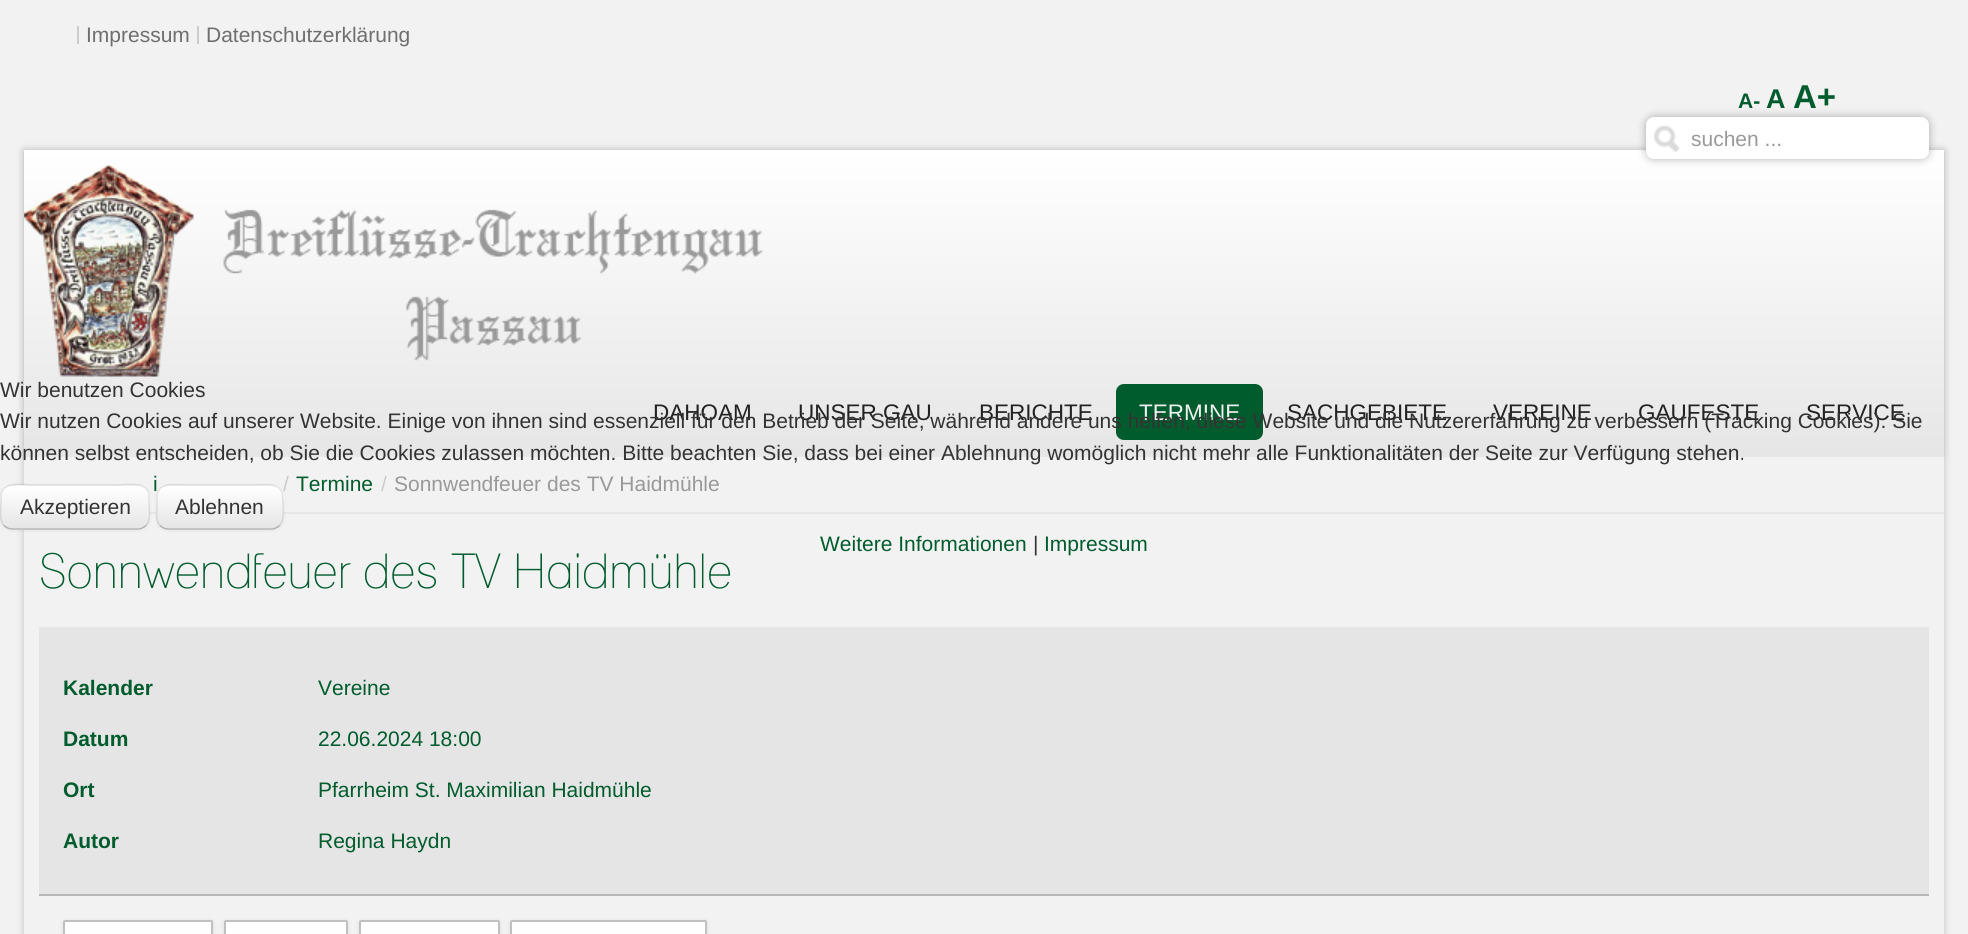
#include <cairo.h>
#include <math.h>
#include <stddef.h>

static cairo_t *c;
static void C(unsigned color){cairo_set_source_rgb(c, (color >> 16) / 255.0, (color >> 8 & 255) / 255.0, (color & 255) / 255.0);}
static void F(const char *family, double size, int italic, int bold){cairo_select_font_face(c, family, italic ? CAIRO_FONT_SLANT_ITALIC : CAIRO_FONT_SLANT_NORMAL,bold ? CAIRO_FONT_WEIGHT_BOLD : CAIRO_FONT_WEIGHT_NORMAL);cairo_set_font_size(c, size);}
static void T(double x, double y, const char *s){cairo_move_to(c, x, y);cairo_show_text(c, s);}
static void R(double x, double y, double w, double h){cairo_rectangle(c, x, y, w, h);cairo_fill(c);}
static void Q(double x, double y, double w, double h, double r){cairo_new_sub_path(c);cairo_arc(c, x + w - r, y + h - r, r, 0, M_PI / 2);cairo_arc(c, x + r, y + h - r, r, M_PI / 2, M_PI);cairo_arc(c, x + r, y + r, r, M_PI, 1.5 * M_PI);cairo_arc(c, x + w - r, y + r, r, 1.5 * M_PI, 2 * M_PI);cairo_close_path(c);}
static void S(double x, double y, double w, double h, double r, double blur, double alpha){cairo_push_group_with_content(c, CAIRO_CONTENT_ALPHA);cairo_set_operator(c, CAIRO_OPERATOR_SOURCE);for (int i = 15; i >= -15 && fmin(w, h) + blur * i / 3 > 0; i -= 2) {double e = blur * i / 6;cairo_set_source_rgba(c, 0, 0, 0, alpha * erfc((i - 1) / 8.5) / 2);Q(x - e, y - e, w + 2 * e, h + 2 * e, fmax(0, fmin(r + e + blur * .6, fmin(w, h) / 2 + e)));cairo_fill(c);}cairo_pattern_t *soft = cairo_pop_group(c);cairo_mask(c, soft);cairo_pattern_destroy(soft);}
static void I(const char *path, double x, double y, double w, double h){cairo_surface_t *image = cairo_image_surface_create_from_png(path);cairo_save(c);cairo_set_source_surface(c, image, x, y);cairo_rectangle(c, x, y, w, h);cairo_fill(c);cairo_restore(c);cairo_surface_destroy(image);}
int main(void) {
cairo_surface_t *surface = cairo_image_surface_create(CAIRO_FORMAT_RGB24, 1968, 934);
c = cairo_create(surface);
cairo_font_options_t *options = cairo_font_options_create();
cairo_font_options_set_hint_metrics(options, CAIRO_HINT_METRICS_OFF);
cairo_font_options_set_hint_style(options, CAIRO_HINT_STYLE_NONE);
cairo_set_font_options(c, options);
cairo_set_miter_limit(c, 4);
cairo_pattern_t *gradient;
C(0xf2f2f2);
cairo_paint(c);
C(0xcccccc);
R(77,26,2,18);
F("Liberation Sans",21,0,0);
C(0x6f6f6f);
T(86,42,"Impressum");
C(0xcccccc);
R(197,26,2,18);
C(0x6f6f6f);
T(206,42,"Datenschutzerklärung");
F("Liberation Sans",21,0,1);
C(0x005c2d);
T(1738,108,"A-");
F("Liberation Sans",27,0,1);
T(1766,108,"A");
F("Liberation Sans",33,0,1);
T(1793,108,"A+");
C(0x000000);
S(24,150,1920,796,0,4,.2);
S(24,152,1920,304,0,4,.1);
gradient = cairo_pattern_create_linear(984,150,984,455);
cairo_pattern_add_color_stop_rgba(gradient,0,1,1,1,1);
cairo_pattern_add_color_stop_rgba(gradient,1,0.902,0.902,0.902,1);
cairo_set_source(c,gradient);
cairo_pattern_destroy(gradient);
R(24,150,1920,305);
C(0x000000);
S(1646,117,283,42,8,4.5,.3);
C(0xffffff);
Q(1646,117,283,42,8);
cairo_fill(c);
I("1.png",1653,125,27,27);
F("Liberation Sans",21,0,0);
C(0x999999);
T(1691,146,"suchen ...");
C(0x333333);
T(0,397,"Wir benutzen Cookies");
F("Liberation Sans",22.5,0,0);
C(0x222222);
T(653,420,"DAHOAM");
T(798,420,"UNSER GAU");
T(979,420,"BERICHTE");
C(0x005c2d);
Q(1116,384,147,56,8);
cairo_fill(c);
C(0xf1f1f1);
T(1139,420,"TERMINE");
C(0x222222);
T(1287,420,"SACHGEBIETE");
T(1493,420,"VEREINE");
T(1638,420,"GAUFESTE");
T(1806,420,"SERVICE");
F("Liberation Sans",21,0,0);
C(0x333333);
T(0,428,"Wir nutzen Cookies auf unserer Website. Einige von ihnen sind essenziell für den Betrieb der Seite, während andere uns helfen, diese Website und die Nutzererfahrung zu verbessern (Tracking Cookies). Sie");
C(0xf2f2f2);
R(24,457,1920,477);
C(0xe7e7e7);
R(24,455,1920,2);
C(0x333333);
T(0,460,"können selbst entscheiden, ob Sie die Cookies zulassen möchten. Bitte beachten Sie, dass bei einer Ablehnung womöglich nicht mehr alle Funktionalitäten der Seite zur Verfügung stehen.");
C(0xe7e7e7);
R(150,512,1794,2);
C(0x000000);
S(0,486,150,45,12,1.5,.05);
C(0xf5f5f5);
Q(0,485,150,45,12);
cairo_fill(c);
cairo_save(c);
Q(0,485,150,45,12);
cairo_clip(c);
gradient = cairo_pattern_create_linear(75,486,75,528);
cairo_pattern_add_color_stop_rgba(gradient,0,1,1,1,1);
cairo_pattern_add_color_stop_rgba(gradient,1,0.902,0.902,0.902,1);
cairo_set_source(c,gradient);
cairo_pattern_destroy(gradient);
R(0,486,150,42);
cairo_restore(c);
cairo_set_source_rgba(c,1,1,1,0.2);
cairo_new_path(c);
cairo_move_to(c,12,488);
cairo_line_to(c,138,488);
cairo_curve_to(c,144,488,148,492,148,498);
cairo_line_to(c,148,519);
cairo_line_to(c,148,523);
cairo_curve_to(c,148,521,149,519,149,517);
cairo_line_to(c,149,497);
cairo_curve_to(c,149,491,144,486,138,486);
cairo_line_to(c,13,486);
cairo_curve_to(c,7,486,2,491,2,497);
cairo_line_to(c,2,498);
cairo_curve_to(c,2,492,6,488,12,488);
cairo_close_path(c);
cairo_fill(c);
cairo_new_path(c);
cairo_move_to(c,146,525.5);
cairo_curve_to(c,144,527.5,141,529,138,529);
cairo_line_to(c,12,529);
cairo_curve_to(c,9,529,6,527.5,4,525.5);
C(0xb3b3b3);
cairo_set_line_width(c,1.5);
cairo_stroke(c);
cairo_new_path(c);
cairo_move_to(c,4,525.5);
cairo_curve_to(c,-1,520.5,1,510,1,503.5);
cairo_line_to(c,1,494.5);
cairo_curve_to(c,3.5,480.5,25,485,33,485);
cairo_line_to(c,117,485);
cairo_curve_to(c,125,485,146.5,480.5,149,494.5);
cairo_line_to(c,149,503.5);
cairo_curve_to(c,149,510,151,520.5,146,525.5);
cairo_set_source_rgba(c,0,0,0,0.1);
cairo_stroke(c);
C(0x333333);
T(20,514,"Akzeptieren");
C(0x000000);
S(156,486,128,45,12,1.5,.05);
C(0xcccccc);
T(283,491,"/");
C(0xf5f5f5);
Q(156,485,128,45,12);
cairo_fill(c);
cairo_save(c);
Q(156,485,128,45,12);
cairo_clip(c);
gradient = cairo_pattern_create_linear(220,486,220,528);
cairo_pattern_add_color_stop_rgba(gradient,0,1,1,1,1);
cairo_pattern_add_color_stop_rgba(gradient,1,0.902,0.902,0.902,1);
cairo_set_source(c,gradient);
cairo_pattern_destroy(gradient);
R(156,486,128,42);
cairo_restore(c);
cairo_new_path(c);
cairo_move_to(c,279.5,525.5);
cairo_curve_to(c,277.5,527.5,274.5,529,271.5,529);
cairo_line_to(c,168,529);
cairo_curve_to(c,165,529,162,527.5,160,525.5);
C(0xb3b3b3);
cairo_stroke(c);
cairo_new_path(c);
cairo_move_to(c,160,525.5);
cairo_curve_to(c,155.5,520.5,157,513,157,507);
cairo_line_to(c,157,494.5);
cairo_curve_to(c,159.5,481.5,177,485,185,485);
cairo_line_to(c,254,485);
cairo_curve_to(c,262.5,485,280,481.5,282.5,494.5);
cairo_line_to(c,283,503.5);
cairo_curve_to(c,283,510,284.5,520.5,279.5,525.5);
cairo_set_source_rgba(c,0,0,0,0.1);
cairo_stroke(c);
C(0x333333);
T(175,514,"Ablehnen");
C(0x005c2d);
T(820,551,"Weitere Informationen");
C(0x333333);
T(1033,551,"|");
C(0x005c2d);
T(1044,551,"Impressum");
I("2.png",24,165,739,212);
T(153,491,"i");
T(296,491,"Termine");
C(0xcccccc);
T(381,491,"/");
C(0x999999);
T(394,491,"Sonnwendfeuer des TV Haidmühle");
F("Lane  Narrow",48,0,0);
C(0x005c2d);
T(39,588,"Sonnwendfeuer des TV Haidmühle");
C(0xe5e5e5);
R(39,627,1890,267);
C(0xb7b7b7);
R(39,894,1890,2);
F("Liberation Sans",21,0,1);
C(0x005c2d);
T(63,695,"Kalender");
F("Liberation Sans",21,0,0);
T(318,695,"Vereine");
F("Liberation Sans",21,0,1);
T(63,746,"Datum");
F("Liberation Sans",21,0,0);
T(318,746,"22.06.2024 18:00");
F("Liberation Sans",21,0,1);
T(63,797,"Ort");
F("Liberation Sans",21,0,0);
T(318,797,"Pfarrheim St. Maximilian Haidmühle");
F("Liberation Sans",21,0,1);
T(63,848,"Autor");
F("Liberation Sans",21,0,0);
T(318,848,"Regina Haydn");
C(0x000000);
S(63,921,150,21,2,2,.1);
gradient = cairo_pattern_create_linear(138,921,138,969);
cairo_pattern_add_color_stop_rgba(gradient,0,1,1,1,1);
cairo_pattern_add_color_stop_rgba(gradient,1,0.98,0.98,0.98,1);
cairo_set_source(c,gradient);
cairo_pattern_destroy(gradient);
R(63,921,150,13);
Q(64,921,148,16,1);
C(0xc0c0c0);
cairo_set_line_width(c,2);
cairo_stroke(c);
C(0x000000);
S(224,921,124,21,2,2,.1);
gradient = cairo_pattern_create_linear(286,921,286,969);
cairo_pattern_add_color_stop_rgba(gradient,0,1,1,1,1);
cairo_pattern_add_color_stop_rgba(gradient,1,0.98,0.98,0.98,1);
cairo_set_source(c,gradient);
cairo_pattern_destroy(gradient);
R(224,921,124,13);
Q(225,921,122,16,1);
C(0xc0c0c0);
cairo_stroke(c);
C(0x000000);
S(359,921,141,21,2,2,.1);
gradient = cairo_pattern_create_linear(429,921,429,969);
cairo_pattern_add_color_stop_rgba(gradient,0,1,1,1,1);
cairo_pattern_add_color_stop_rgba(gradient,1,0.98,0.98,0.98,1);
cairo_set_source(c,gradient);
cairo_pattern_destroy(gradient);
R(359,921,141,13);
Q(360,921,139,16,1);
C(0xc0c0c0);
cairo_stroke(c);
C(0x000000);
S(510,921,197,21,2,2,.1);
gradient = cairo_pattern_create_linear(608,921,608,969);
cairo_pattern_add_color_stop_rgba(gradient,0,1,1,1,1);
cairo_pattern_add_color_stop_rgba(gradient,1,0.98,0.98,0.98,1);
cairo_set_source(c,gradient);
cairo_pattern_destroy(gradient);
R(510,921,197,13);
Q(511,921,195,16,1);
C(0xc0c0c0);
cairo_stroke(c);
cairo_surface_write_to_png(surface, "o.png");
cairo_font_options_destroy(options);
cairo_destroy(c);
cairo_surface_destroy(surface);
return 0;
}
